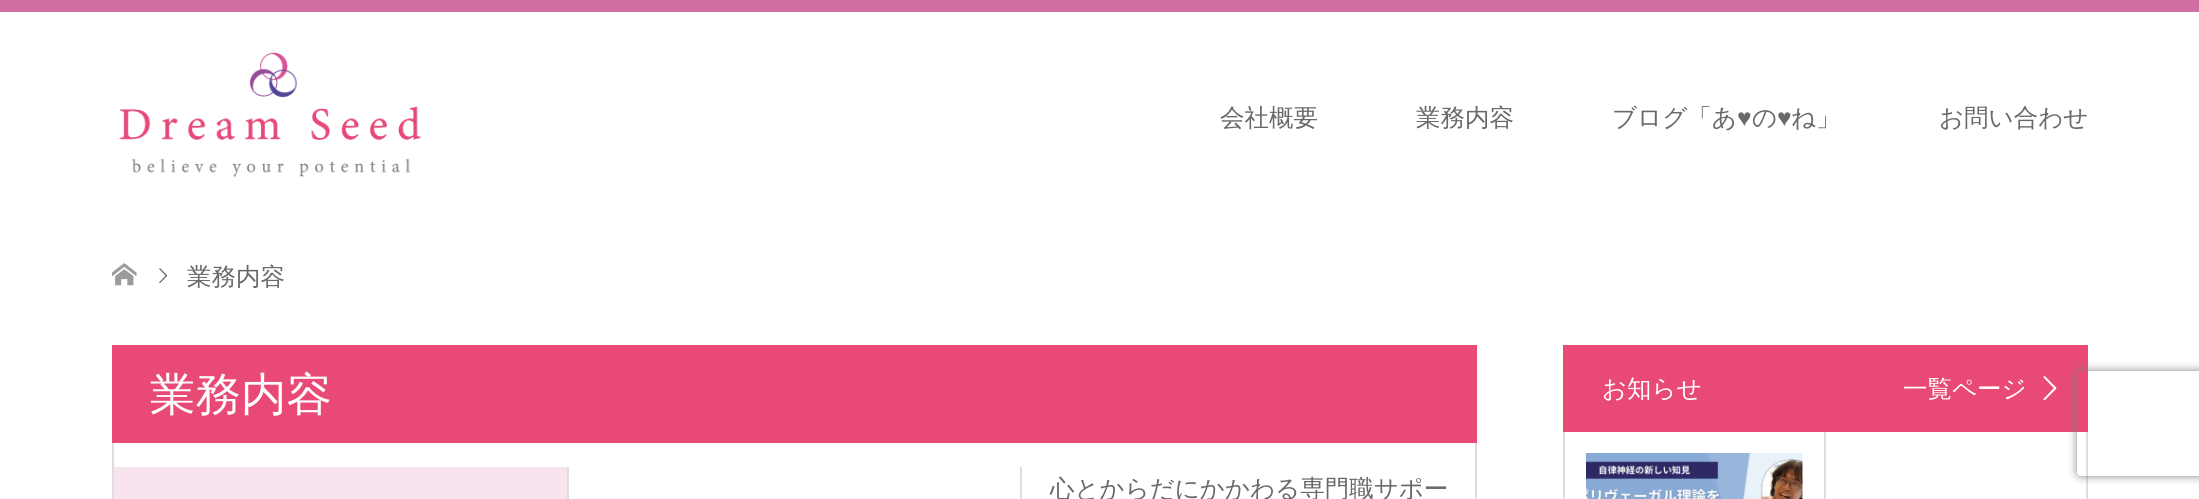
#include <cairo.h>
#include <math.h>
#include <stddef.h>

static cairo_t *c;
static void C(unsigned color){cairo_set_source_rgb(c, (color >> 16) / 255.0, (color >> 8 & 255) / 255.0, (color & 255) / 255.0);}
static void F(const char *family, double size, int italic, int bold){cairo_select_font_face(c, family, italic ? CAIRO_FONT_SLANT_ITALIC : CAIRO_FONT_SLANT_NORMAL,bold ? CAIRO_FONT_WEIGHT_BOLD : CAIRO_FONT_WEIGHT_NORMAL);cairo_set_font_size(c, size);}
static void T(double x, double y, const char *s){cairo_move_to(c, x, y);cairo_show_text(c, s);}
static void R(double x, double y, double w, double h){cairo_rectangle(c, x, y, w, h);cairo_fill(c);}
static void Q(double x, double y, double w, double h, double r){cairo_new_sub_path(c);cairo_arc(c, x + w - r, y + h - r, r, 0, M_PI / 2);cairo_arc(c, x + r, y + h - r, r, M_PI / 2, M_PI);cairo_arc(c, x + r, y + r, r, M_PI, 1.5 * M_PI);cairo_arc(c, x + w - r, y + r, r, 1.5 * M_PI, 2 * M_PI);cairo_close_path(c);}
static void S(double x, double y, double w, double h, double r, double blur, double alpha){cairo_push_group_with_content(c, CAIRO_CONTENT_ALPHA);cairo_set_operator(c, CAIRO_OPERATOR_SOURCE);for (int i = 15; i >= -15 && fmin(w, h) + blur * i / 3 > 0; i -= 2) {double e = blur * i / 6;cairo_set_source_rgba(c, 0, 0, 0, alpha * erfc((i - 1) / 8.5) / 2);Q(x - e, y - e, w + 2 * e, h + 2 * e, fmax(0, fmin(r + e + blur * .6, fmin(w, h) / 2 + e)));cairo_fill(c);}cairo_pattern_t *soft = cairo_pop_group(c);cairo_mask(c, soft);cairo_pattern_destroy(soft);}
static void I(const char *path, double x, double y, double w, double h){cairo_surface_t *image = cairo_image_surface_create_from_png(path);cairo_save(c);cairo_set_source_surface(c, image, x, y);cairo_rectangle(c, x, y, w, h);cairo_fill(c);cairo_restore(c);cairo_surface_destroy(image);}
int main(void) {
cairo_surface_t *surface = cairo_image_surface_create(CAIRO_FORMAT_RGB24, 2199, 499);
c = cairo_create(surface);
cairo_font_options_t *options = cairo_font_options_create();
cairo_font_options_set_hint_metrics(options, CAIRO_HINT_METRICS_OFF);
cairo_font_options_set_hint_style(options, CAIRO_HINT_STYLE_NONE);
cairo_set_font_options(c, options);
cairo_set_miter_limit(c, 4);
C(0xffffff);
cairo_paint(c);
C(0xd36ea4);
R(0,0,2199,12);
I("1.png",119,52,303,126);
F("WenQuanYi Zen Hei Medium",24.5,0,0);
C(0x696969);
T(1220,126,"会社概要");
T(1416,126,"業務内容");
T(1612,126,"ブログ「あ");
F("Liberation Sans",24.5,0,0);
T(1737,126,"♥");
F("WenQuanYi Zen Hei Medium",24.5,0,0);
T(1752,126,"の");
F("Liberation Sans",24.5,0,0);
T(1777,126,"♥");
F("WenQuanYi Zen Hei Medium",24.5,0,0);
T(1791,126,"ね」");
T(1939,126,"お問い合わせ");
I("2.png",112,263,25,23);
I("3.png",159,268,9,16);
T(187,285,"業務内容");
C(0xe84975);
R(112,345,1365,98);
F("WenQuanYi Zen Hei Medium",45.5,0,0);
C(0xffffff);
T(150,410,"業務内容");
C(0xdedede);
R(112,443,2,56);
C(0xf7e4ee);
R(114,467,453,32);
C(0xdedede);
R(567,467,2,32);
R(1020,467,2,32);
R(1475,443,2,56);
F("WenQuanYi Zen Hei Medium",24.5,0,0);
C(0x696969);
T(1050,497,"心とからだにかかわる専門職サポー");
C(0xe84975);
R(1563,345,525,87);
C(0xffffff);
T(1602,397,"お知らせ");
T(1903,397,"一覧ページ");
I("4.png",2043,376,14,25);
C(0xdedede);
R(2086,432,2,67);
R(1563,432,2,67);
R(1824,432,2,67);
I("5.png",1586,453,217,46);
cairo_save(c);
cairo_set_fill_rule(c,CAIRO_FILL_RULE_EVEN_ODD);
cairo_new_path(c);
cairo_move_to(c,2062,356);
cairo_line_to(c,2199,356);
cairo_line_to(c,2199,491);
cairo_line_to(c,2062,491);
cairo_close_path(c);
cairo_move_to(c,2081,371);
cairo_line_to(c,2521,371);
cairo_curve_to(c,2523,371,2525,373,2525,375);
cairo_line_to(c,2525,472);
cairo_curve_to(c,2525,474,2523,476,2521,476);
cairo_line_to(c,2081,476);
cairo_curve_to(c,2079,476,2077,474,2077,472);
cairo_line_to(c,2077,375);
cairo_curve_to(c,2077,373,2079,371,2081,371);
cairo_close_path(c);
cairo_clip(c);
C(0x838383);
S(2077,371,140,105,4,4.5,1);
cairo_restore(c);
cairo_surface_write_to_png(surface, "o.png");
cairo_font_options_destroy(options);
cairo_destroy(c);
cairo_surface_destroy(surface);
return 0;
}
